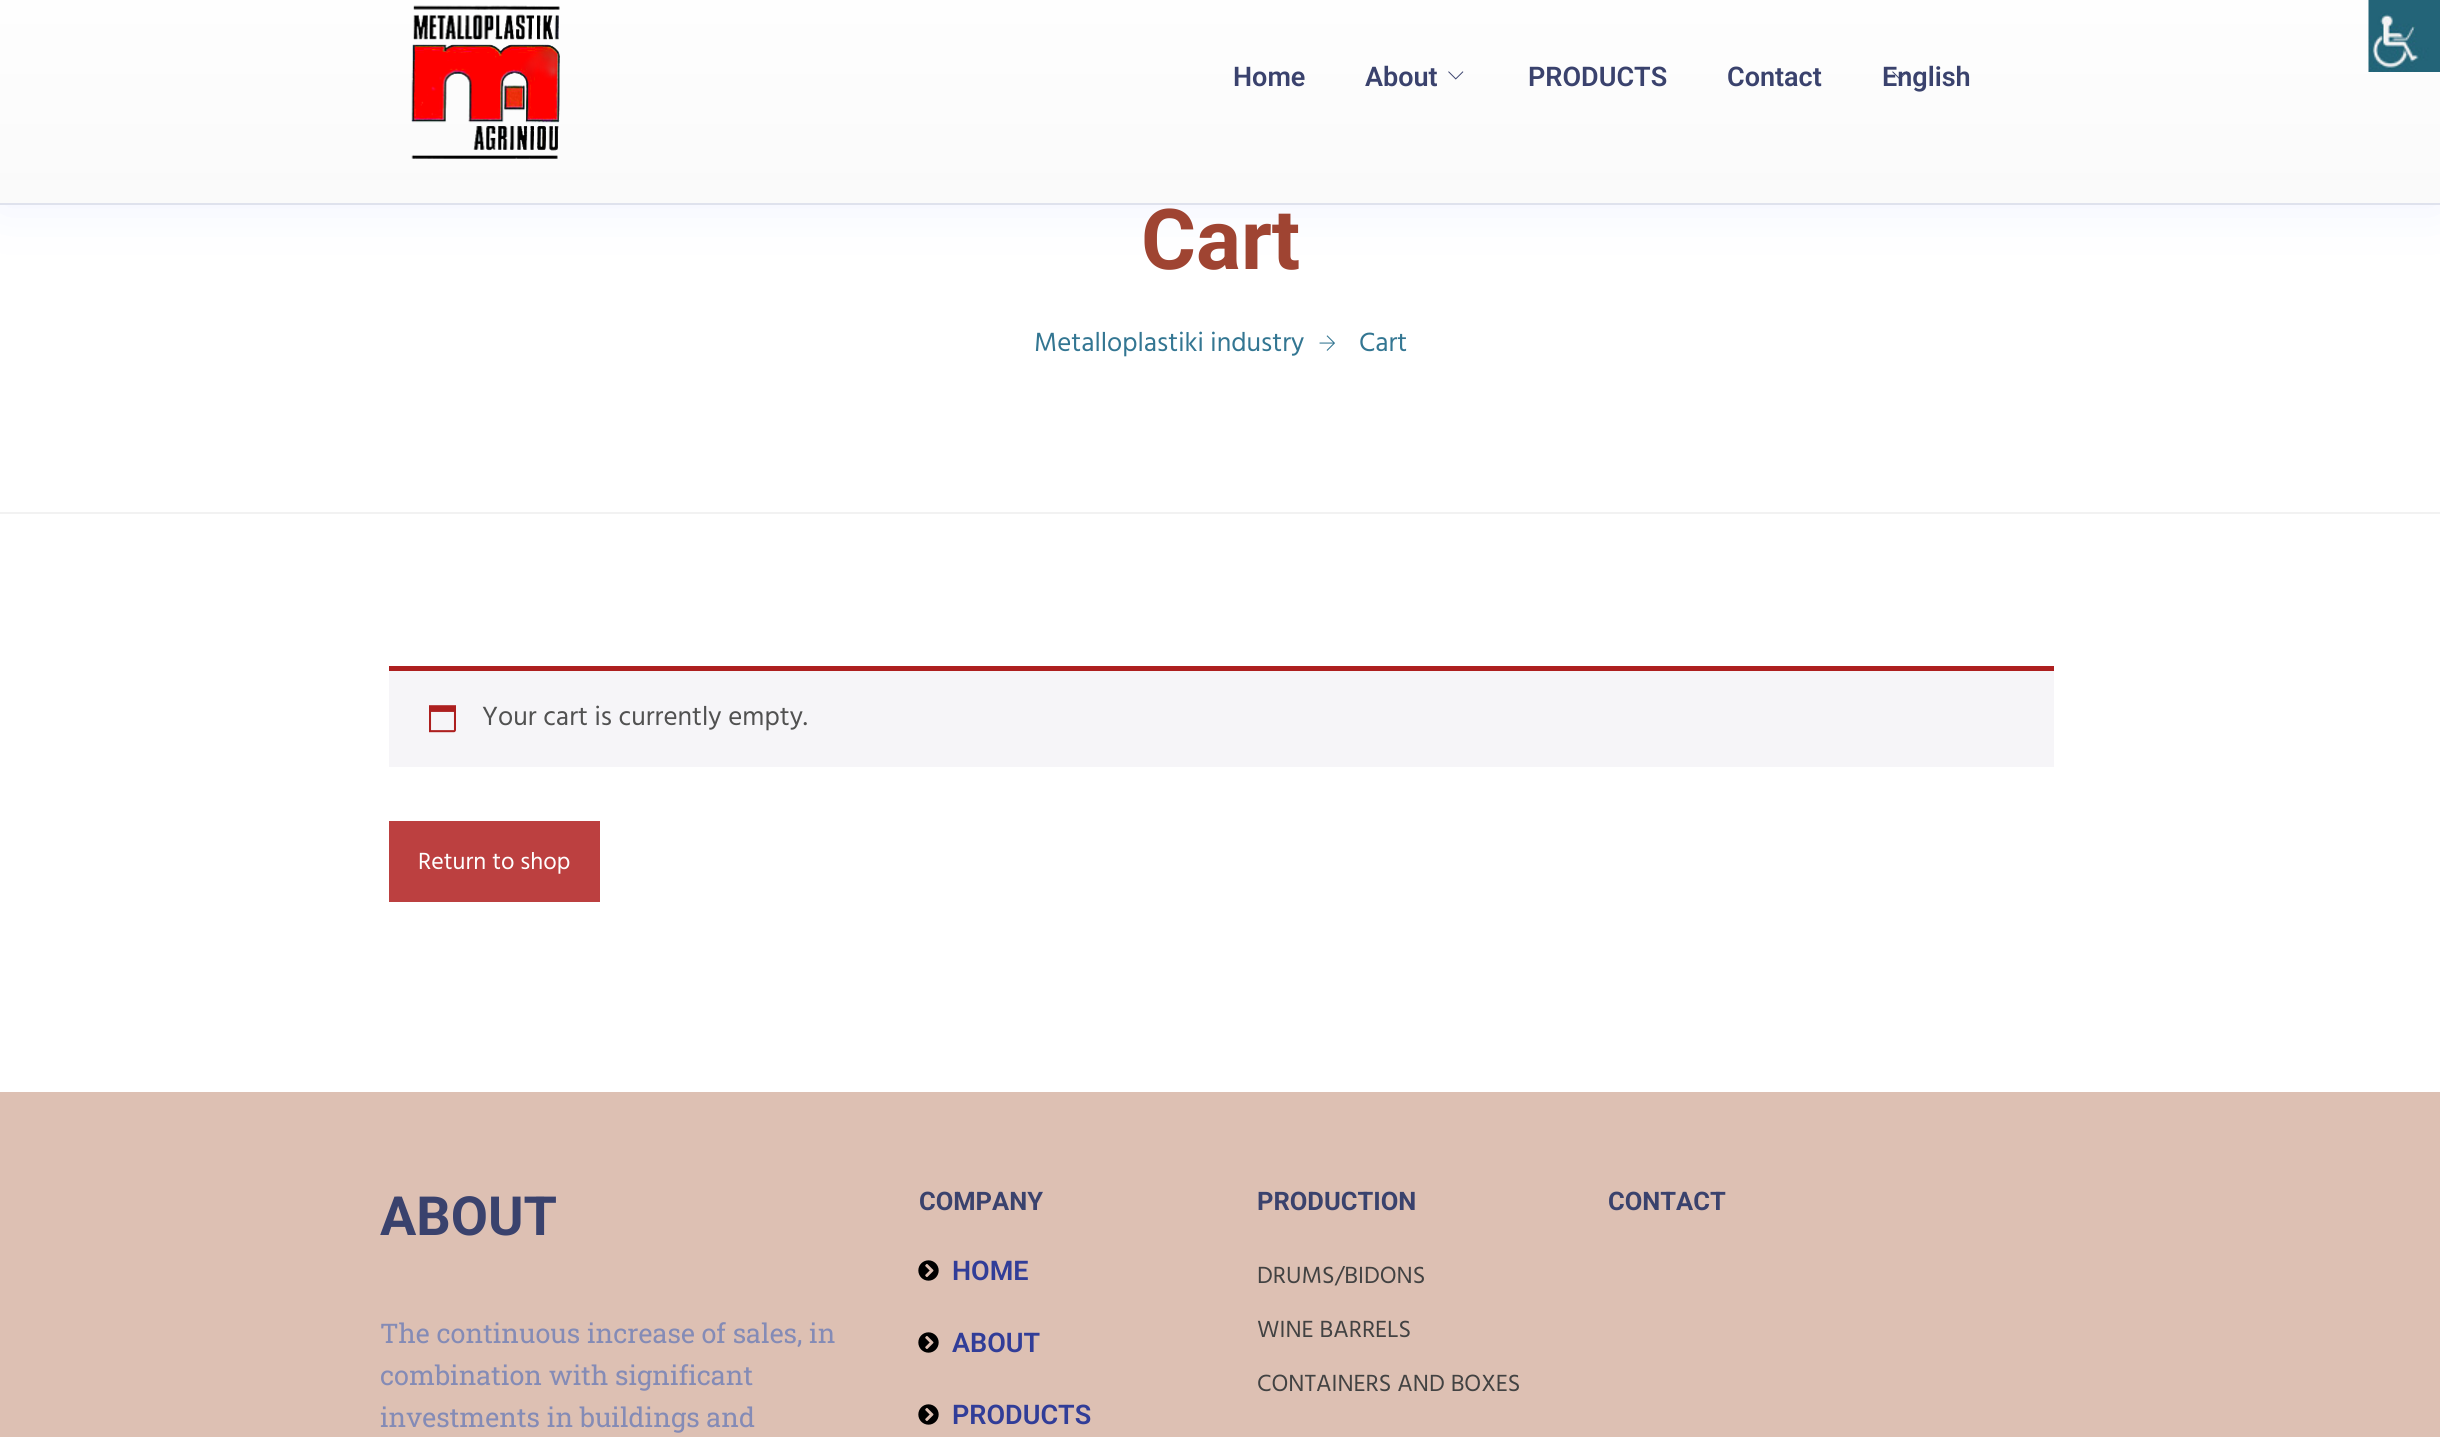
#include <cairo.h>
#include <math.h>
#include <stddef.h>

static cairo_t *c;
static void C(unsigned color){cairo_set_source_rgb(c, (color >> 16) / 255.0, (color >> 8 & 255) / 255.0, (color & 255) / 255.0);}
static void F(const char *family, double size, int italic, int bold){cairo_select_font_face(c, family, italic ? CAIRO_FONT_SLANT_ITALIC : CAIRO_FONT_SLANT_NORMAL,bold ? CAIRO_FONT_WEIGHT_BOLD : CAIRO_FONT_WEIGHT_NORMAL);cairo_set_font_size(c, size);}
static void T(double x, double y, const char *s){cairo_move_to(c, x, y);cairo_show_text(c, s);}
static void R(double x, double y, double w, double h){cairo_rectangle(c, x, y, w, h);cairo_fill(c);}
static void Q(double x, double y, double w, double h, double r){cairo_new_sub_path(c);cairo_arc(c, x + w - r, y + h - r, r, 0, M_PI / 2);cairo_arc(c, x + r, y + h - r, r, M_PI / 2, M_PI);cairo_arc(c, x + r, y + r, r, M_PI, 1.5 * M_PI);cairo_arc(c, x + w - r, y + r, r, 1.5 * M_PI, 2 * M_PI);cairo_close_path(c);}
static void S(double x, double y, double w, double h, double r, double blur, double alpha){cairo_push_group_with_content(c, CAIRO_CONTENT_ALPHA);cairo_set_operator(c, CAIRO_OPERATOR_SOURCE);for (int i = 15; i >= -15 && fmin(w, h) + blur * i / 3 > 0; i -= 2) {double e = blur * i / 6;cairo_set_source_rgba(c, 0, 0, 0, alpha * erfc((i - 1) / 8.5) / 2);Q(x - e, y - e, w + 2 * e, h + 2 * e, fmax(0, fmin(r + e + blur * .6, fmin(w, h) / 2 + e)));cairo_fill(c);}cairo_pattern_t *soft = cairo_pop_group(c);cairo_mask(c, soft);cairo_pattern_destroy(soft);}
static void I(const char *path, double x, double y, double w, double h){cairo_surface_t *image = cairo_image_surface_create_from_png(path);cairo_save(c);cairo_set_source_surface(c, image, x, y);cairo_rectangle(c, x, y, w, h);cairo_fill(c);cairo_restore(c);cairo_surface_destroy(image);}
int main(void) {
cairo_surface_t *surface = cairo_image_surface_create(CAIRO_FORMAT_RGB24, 2440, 1437);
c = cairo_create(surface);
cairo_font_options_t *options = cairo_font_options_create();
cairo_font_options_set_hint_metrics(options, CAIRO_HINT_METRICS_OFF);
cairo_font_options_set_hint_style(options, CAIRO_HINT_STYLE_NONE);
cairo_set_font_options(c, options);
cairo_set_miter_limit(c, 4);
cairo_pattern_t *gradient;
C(0xffffff);
cairo_paint(c);
C(0x566dfb);
S(0,-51,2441,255,0,28,.1);
gradient = cairo_pattern_create_linear(1220,-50,1220,203);
cairo_pattern_add_color_stop_rgba(gradient,0,1,1,1,1);
cairo_pattern_add_color_stop_rgba(gradient,1,0.98,0.98,0.98,1);
cairo_set_source(c,gradient);
cairo_pattern_destroy(gradient);
R(0,0,2440,203);
I("1.png",2368,0,72,72);
C(0xdfe2ed);
R(0,203,2440,2);
I("2.png",411,5,149,154);
F("Roboto SemiBold",27,0,0);
C(0x3a426d);
T(1233,86,"Home");
T(1365,86,"About");
I("3.png",1448,71,16,9);
T(1528,86,"PRODUCTS");
T(1727,86,"Contact");
T(1882,86,"English");
I("4.png",1892,71,16,8);
C(0xf2f2f2);
R(0,512,2440,2);
F("Roboto",84,0,1);
C(0x9f4432);
T(1141,269,"Cart");
F("Hind",27,0,0);
C(0x337692);
T(1034,351,"Metalloplastiki industry");
I("5.png",1319,335,16,16);
T(1359,351,"Cart");
C(0xf6f5f8);
R(389,671,1665,96);
C(0xad1f1f);
R(389,666,1665,5);
I("6.png",429,705,27,28);
C(0x515151);
T(482,725,"Your cart is currently empty.");
C(0xbc4040);
R(389,821,211,81);
F("Hind",24,0,0);
C(0xffffff);
T(418,869,"Return to shop");
C(0xddc0b3);
R(0,1092,2440,345);
F("Roboto",54,0,1);
C(0x3a426d);
T(380,1235,"ABOUT");
F("Roboto Slab",27,0,0);
C(0x848bb6);
T(380,1343,"The continuous increase of sales, in");
T(380,1385,"combination with significant");
T(380,1427,"investments in buildings and");
F("Roboto",25.5,0,1);
C(0x3a426d);
T(919,1210,"COMPANY");
I("7.png",918,1260,21,21);
F("Roboto SemiBold",27,0,0);
C(0x313d98);
T(952,1280,"HOME");
I("7.png",918,1332,21,21);
T(952,1352,"ABOUT");
I("7.png",918,1404,21,21);
T(952,1424,"PRODUCTS");
F("Roboto",25.5,0,1);
C(0x3a426d);
T(1257,1210,"PRODUCTION");
F("Hind",24,0,0);
C(0x424242);
T(1257,1283,"DRUMS/BIDONS");
T(1257,1337,"WINE BARRELS");
T(1257,1391,"CONTAINERS AND BOXES");
F("Roboto",25.5,0,1);
C(0x3a426d);
T(1608,1210,"CONTACT");
cairo_surface_write_to_png(surface, "o.png");
cairo_font_options_destroy(options);
cairo_destroy(c);
cairo_surface_destroy(surface);
return 0;
}
